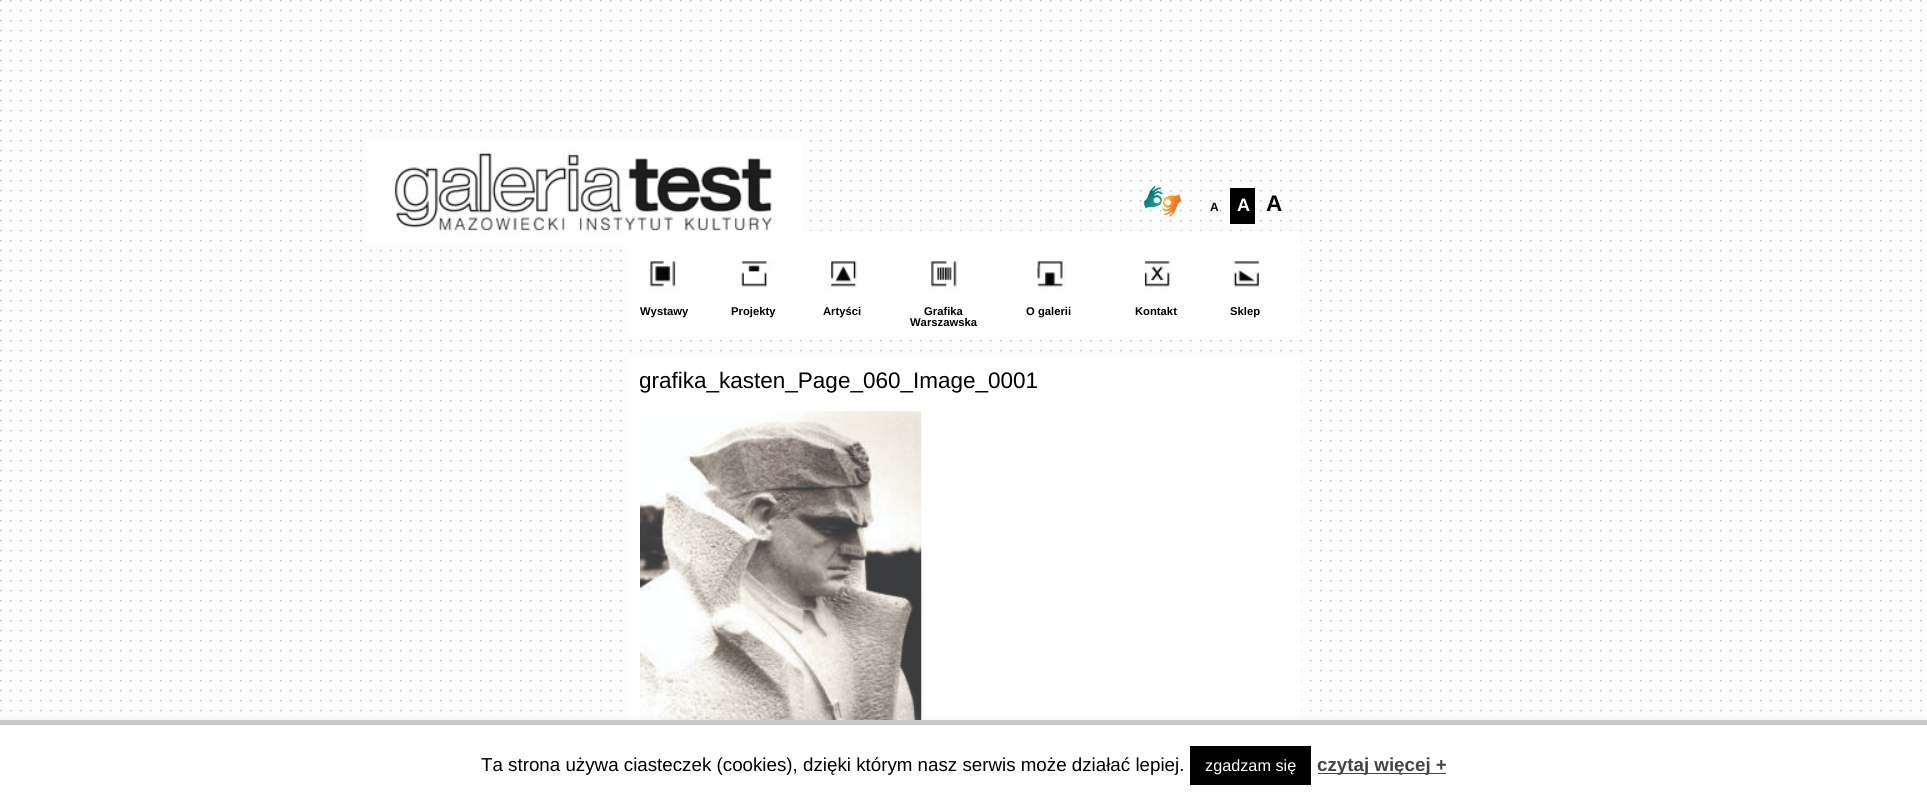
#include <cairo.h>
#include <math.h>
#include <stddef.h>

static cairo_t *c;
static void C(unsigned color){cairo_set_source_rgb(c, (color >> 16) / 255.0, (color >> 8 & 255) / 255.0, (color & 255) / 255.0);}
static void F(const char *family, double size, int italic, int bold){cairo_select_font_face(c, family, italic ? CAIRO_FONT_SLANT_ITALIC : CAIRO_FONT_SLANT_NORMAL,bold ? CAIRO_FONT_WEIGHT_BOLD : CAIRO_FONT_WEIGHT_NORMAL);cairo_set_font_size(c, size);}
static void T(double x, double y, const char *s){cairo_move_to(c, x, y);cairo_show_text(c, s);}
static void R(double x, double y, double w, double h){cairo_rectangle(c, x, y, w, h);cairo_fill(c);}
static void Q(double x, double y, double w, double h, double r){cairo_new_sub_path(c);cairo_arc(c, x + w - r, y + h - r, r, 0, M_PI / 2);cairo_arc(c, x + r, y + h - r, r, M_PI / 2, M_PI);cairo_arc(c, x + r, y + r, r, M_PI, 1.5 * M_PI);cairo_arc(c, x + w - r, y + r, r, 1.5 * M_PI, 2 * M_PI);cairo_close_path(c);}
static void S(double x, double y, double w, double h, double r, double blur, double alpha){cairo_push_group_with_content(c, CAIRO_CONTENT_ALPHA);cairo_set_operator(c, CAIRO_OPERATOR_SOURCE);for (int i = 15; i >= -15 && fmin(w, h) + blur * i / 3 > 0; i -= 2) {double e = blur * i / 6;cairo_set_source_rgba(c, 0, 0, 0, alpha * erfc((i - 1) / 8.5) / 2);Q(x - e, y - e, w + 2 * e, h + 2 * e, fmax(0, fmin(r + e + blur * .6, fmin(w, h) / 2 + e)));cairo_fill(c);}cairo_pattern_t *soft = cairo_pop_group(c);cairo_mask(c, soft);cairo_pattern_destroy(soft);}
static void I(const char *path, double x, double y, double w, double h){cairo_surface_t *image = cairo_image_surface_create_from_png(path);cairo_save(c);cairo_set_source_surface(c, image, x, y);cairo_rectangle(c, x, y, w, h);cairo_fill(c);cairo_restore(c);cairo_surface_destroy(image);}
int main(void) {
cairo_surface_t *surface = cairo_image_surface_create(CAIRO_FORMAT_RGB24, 1927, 799);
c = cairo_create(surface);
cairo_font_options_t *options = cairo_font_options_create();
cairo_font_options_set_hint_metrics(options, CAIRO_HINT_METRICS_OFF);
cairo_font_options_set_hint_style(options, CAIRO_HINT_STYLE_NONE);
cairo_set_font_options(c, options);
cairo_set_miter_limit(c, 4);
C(0xffffff);
cairo_paint(c);
I("1.png",0,0,1926,720);
I("2.png",365,139,437,106);
I("3.png",1143,185,38,32);
F("Liberation Sans",12,0,1);
C(0x000000);
T(1210,211,"A");
R(1230,188,25,36);
F("Liberation Sans",18,0,1);
C(0xffffff);
T(1237,211,"A");
F("Liberation Sans",22.5,0,1);
C(0x000000);
T(1266,211,"A");
C(0xffffff);
R(628,231,673,104);
I("4.png",646,261,35,30);
F("Liberation Sans",11.25,0,1);
C(0x000000);
T(640,315,"Wystawy");
I("5.png",736,261,39,28);
T(731,315,"Projekty");
I("6.png",824,261,35,29);
T(823,315,"Artyści");
I("7.png",929,261,31,30);
T(924,315,"Grafika");
T(910,326,"Warszawska");
I("8.png",1037,261,29,29);
T(1026,315,"O galerii");
I("9.png",1143,261,28,29);
T(1135,315,"Kontakt");
I("10.png",1231,261,34,26);
T(1230,315,"Sklep");
C(0xffffff);
R(628,356,673,364);
F("Liberation Sans",22.5,0,0);
C(0x000000);
T(639,388,"grafika_kasten_Page_060_Image_0001");
I("11.png",640,411,282,309);
C(0xcdcdcd);
R(0,720,1927,5);
C(0xacabab);
S(0,724,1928,75,0,6,.3);
C(0xffffff);
R(0,725,1927,74);
F("Liberation Sans",18.75,0,0);
C(0x000000);
T(481,771,"Ta strona używa ciasteczek (cookies), dzięki którym nasz serwis może działać lepiej.");
R(1190,746,121,39);
F("Liberation Sans",16.25,0,0);
C(0xffffff);
T(1205,771,"zgadzam się");
C(0x444444);
R(1318,773,128,1);
F("Liberation Sans",18.75,0,1);
T(1317,771,"czytaj więcej +");
cairo_surface_write_to_png(surface, "o.png");
cairo_font_options_destroy(options);
cairo_destroy(c);
cairo_surface_destroy(surface);
return 0;
}
